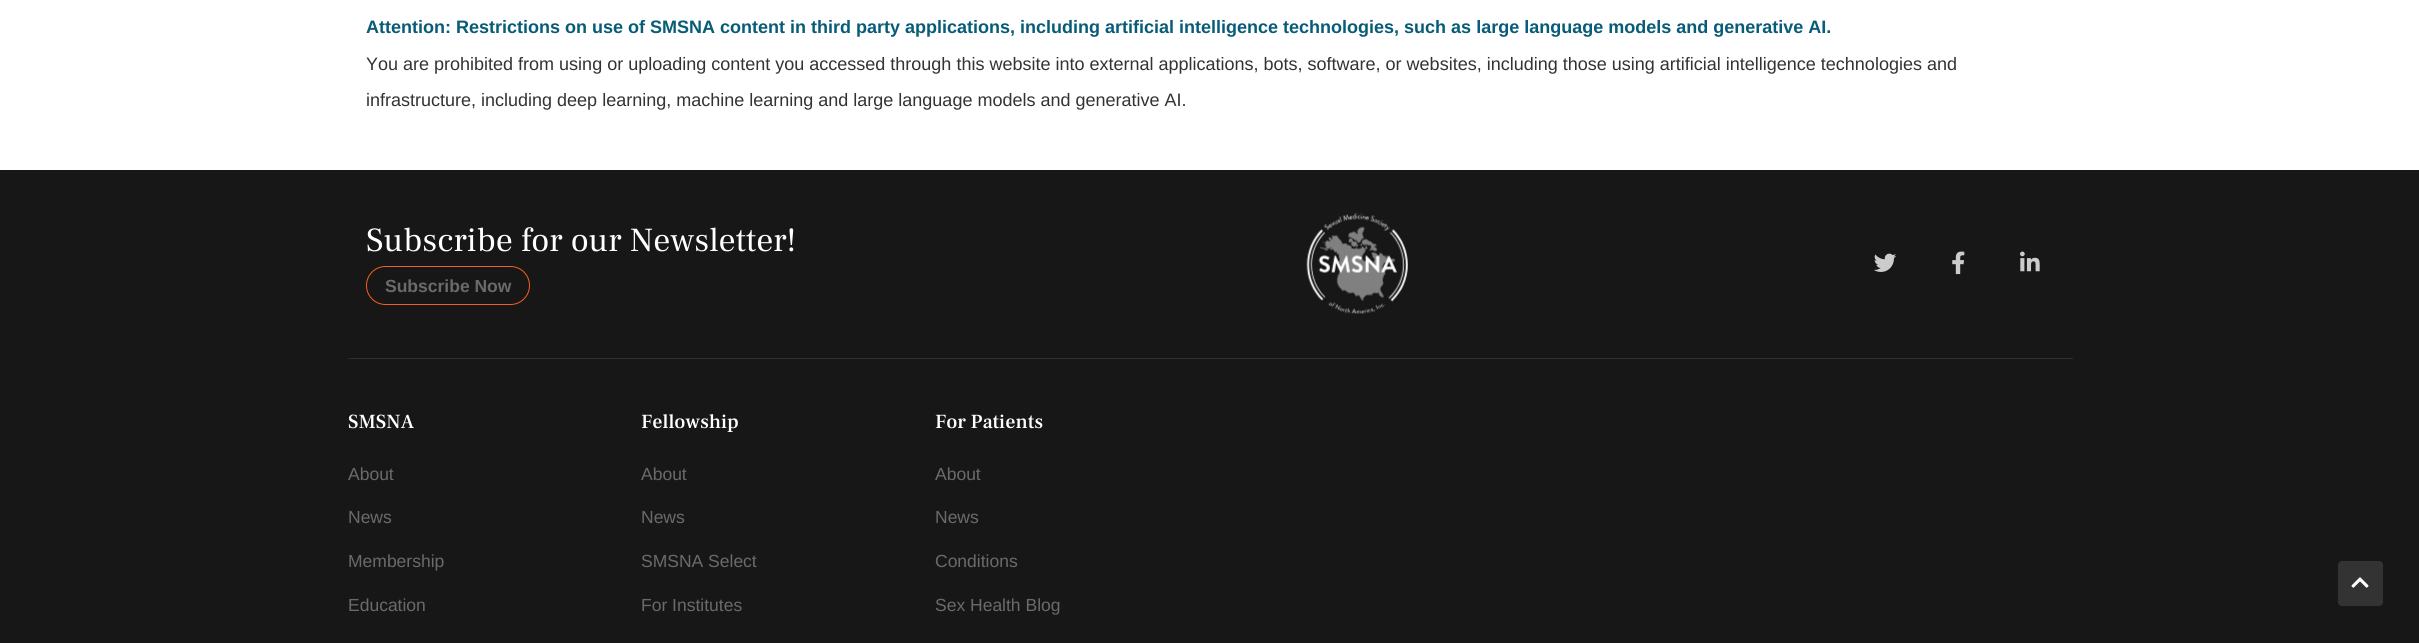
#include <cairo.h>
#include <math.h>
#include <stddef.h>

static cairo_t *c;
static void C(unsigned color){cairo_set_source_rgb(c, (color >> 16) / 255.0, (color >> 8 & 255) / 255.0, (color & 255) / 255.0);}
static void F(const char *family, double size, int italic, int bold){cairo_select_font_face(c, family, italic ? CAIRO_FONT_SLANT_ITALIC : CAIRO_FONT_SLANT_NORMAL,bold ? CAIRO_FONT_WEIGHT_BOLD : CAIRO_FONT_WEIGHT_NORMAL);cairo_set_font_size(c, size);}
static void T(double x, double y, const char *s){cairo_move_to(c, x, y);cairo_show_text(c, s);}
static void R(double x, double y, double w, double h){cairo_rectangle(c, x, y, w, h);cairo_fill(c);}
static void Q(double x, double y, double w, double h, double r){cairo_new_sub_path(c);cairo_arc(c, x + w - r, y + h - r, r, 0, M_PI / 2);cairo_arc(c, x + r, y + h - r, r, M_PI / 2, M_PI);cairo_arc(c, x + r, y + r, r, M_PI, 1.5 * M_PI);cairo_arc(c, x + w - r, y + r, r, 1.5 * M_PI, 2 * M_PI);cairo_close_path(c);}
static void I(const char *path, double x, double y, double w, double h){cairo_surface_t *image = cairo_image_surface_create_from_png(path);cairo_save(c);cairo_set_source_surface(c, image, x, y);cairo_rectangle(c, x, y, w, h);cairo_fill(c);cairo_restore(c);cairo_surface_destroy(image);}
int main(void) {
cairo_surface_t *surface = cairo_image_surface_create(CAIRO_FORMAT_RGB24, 2419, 643);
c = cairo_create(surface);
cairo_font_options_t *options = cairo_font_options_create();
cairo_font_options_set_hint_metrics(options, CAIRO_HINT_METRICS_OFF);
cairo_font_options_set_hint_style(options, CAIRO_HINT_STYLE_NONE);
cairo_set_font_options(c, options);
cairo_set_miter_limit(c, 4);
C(0xffffff);
cairo_paint(c);
F("Arimo",18,0,1);
C(0x085c77);
T(366,33,"Attention: Restrictions on use of SMSNA content in third party applications, including artificial intelligence technologies, such as large language models and generative AI.");
F("Arimo",18,0,0);
C(0x333333);
T(366,70,"You are prohibited from using or uploading content you accessed through this website into external applications, bots, software, or websites, including those using artificial intelligence technologies and");
T(366,106,"infrastructure, including deep learning, machine learning and large language models and generative AI.");
C(0x171717);
R(0,170,2419,473);
F("Frank Ruhl Libre",33.75,0,0);
C(0xffffff);
T(366,251,"Subscribe for our Newsletter!");
Q(366.5,266.5,163,38,19);
C(0xf15f24);
cairo_set_line_width(c,1);
cairo_stroke(c);
F("Arimo",17.5,0,1);
C(0x6a6a6a);
T(385,292,"Subscribe Now");
I("1.png",1306,213,102,101);
I("2.png",1873,253,23,19);
I("3.png",1952,251,13,24);
I("4.png",2020,251,20,21);
C(0x2e2e2e);
R(348,358,1725,1);
F("Frank Ruhl Libre Medium",20,0,0);
C(0xffffff);
T(348,428,"SMSNA");
F("Arimo",17.5,0,0);
C(0x6a6a6a);
T(348,480,"About");
T(348,523,"News");
T(348,567,"Membership");
T(348,611,"Education");
F("Frank Ruhl Libre Medium",20,0,0);
C(0xffffff);
T(641,428,"Fellowship");
F("Arimo",17.5,0,0);
C(0x6a6a6a);
T(641,480,"About");
T(641,523,"News");
T(641,567,"SMSNA Select");
T(641,611,"For Institutes");
F("Frank Ruhl Libre Medium",20,0,0);
C(0xffffff);
T(935,428,"For Patients");
F("Arimo",17.5,0,0);
C(0x6a6a6a);
T(935,480,"About");
T(935,523,"News");
T(935,567,"Conditions");
T(935,611,"Sex Health Blog");
C(0x333333);
Q(2338,561,45,45,4);
cairo_fill(c);
I("5.png",2351,577,18,11);
cairo_surface_write_to_png(surface, "o.png");
cairo_font_options_destroy(options);
cairo_destroy(c);
cairo_surface_destroy(surface);
return 0;
}
